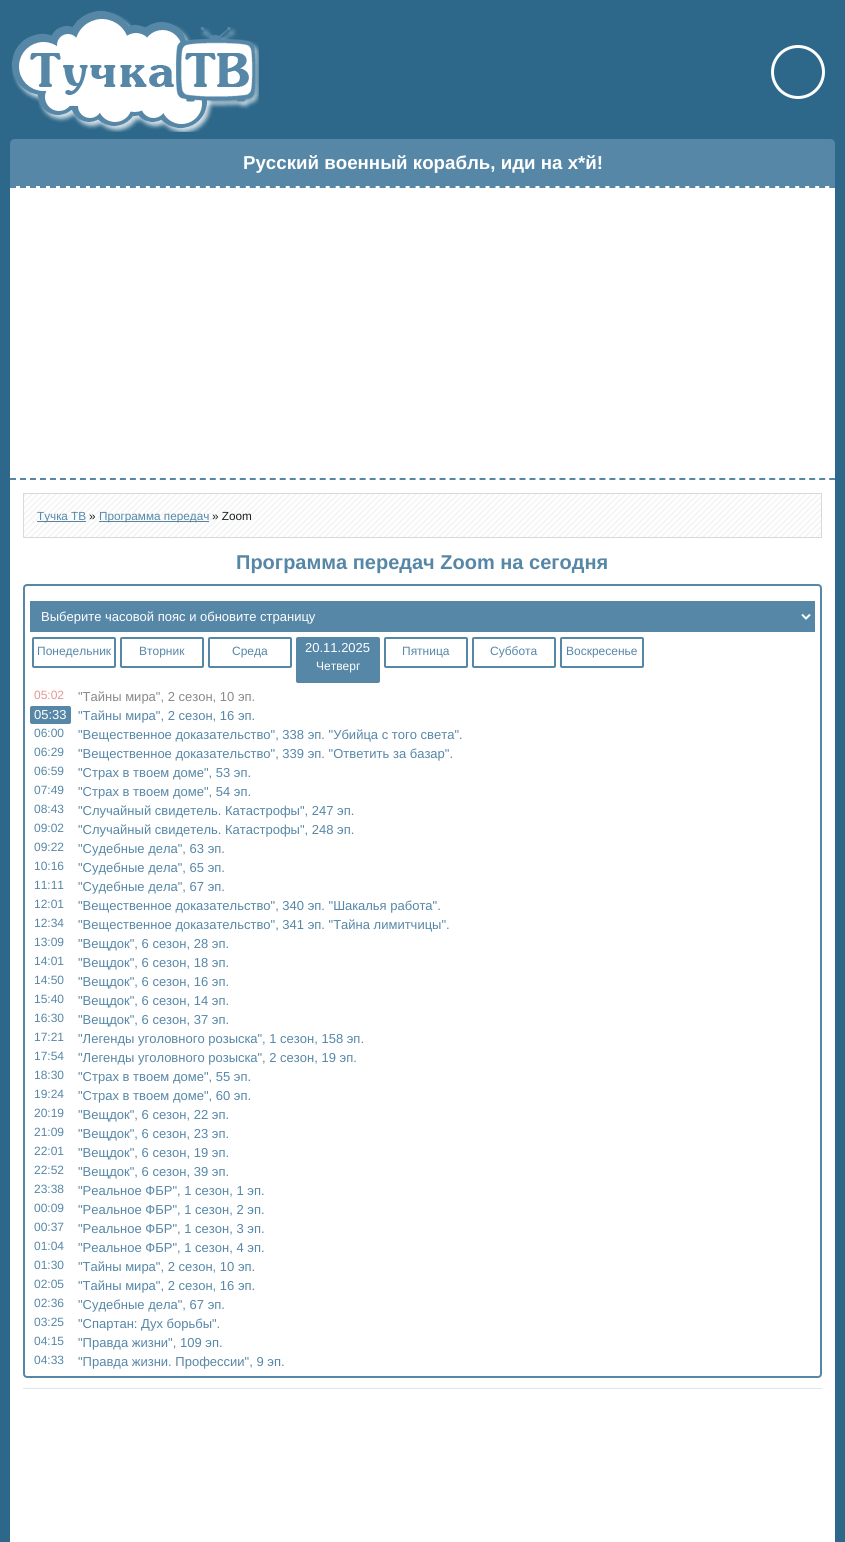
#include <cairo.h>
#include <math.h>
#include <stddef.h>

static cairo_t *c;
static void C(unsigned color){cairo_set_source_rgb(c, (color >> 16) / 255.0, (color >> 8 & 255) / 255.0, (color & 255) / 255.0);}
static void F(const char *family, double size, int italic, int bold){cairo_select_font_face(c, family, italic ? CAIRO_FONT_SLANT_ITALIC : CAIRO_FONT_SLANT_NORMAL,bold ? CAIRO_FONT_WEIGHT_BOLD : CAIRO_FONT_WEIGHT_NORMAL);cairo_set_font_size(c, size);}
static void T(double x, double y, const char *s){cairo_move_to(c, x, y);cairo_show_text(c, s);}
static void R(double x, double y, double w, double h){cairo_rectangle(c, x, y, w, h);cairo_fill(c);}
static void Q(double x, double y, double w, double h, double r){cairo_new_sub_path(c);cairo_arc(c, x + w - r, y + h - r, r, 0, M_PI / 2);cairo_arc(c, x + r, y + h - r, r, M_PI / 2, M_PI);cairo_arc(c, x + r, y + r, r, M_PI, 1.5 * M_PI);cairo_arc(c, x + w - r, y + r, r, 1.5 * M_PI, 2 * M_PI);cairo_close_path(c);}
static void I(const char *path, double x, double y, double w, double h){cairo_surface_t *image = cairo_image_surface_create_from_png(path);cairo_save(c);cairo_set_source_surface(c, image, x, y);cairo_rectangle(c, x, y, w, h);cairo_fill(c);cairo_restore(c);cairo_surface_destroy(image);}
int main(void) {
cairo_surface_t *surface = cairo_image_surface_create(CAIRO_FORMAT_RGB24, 845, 1542);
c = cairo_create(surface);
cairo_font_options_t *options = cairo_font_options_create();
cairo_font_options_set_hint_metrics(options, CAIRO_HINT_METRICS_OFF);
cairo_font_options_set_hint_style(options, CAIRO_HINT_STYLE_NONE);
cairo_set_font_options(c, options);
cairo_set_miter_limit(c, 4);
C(0x2d688a);
cairo_paint(c);
I("1.png",11,10,248,122);
cairo_arc(c,798,72,25.5,0,2 * M_PI);
C(0xffffff);
cairo_set_line_width(c,3);
cairo_stroke(c);
C(0x5687a7);
cairo_new_path(c);
cairo_move_to(c,15,139);
cairo_line_to(c,830,139);
cairo_curve_to(c,833,139,835,141,835,144);
cairo_line_to(c,835,186);
cairo_line_to(c,10,186);
cairo_line_to(c,10,144);
cairo_curve_to(c,10,141,12,139,15,139);
cairo_close_path(c);
cairo_fill(c);
F("Liberation Sans",18.7,0,1);
C(0xffffff);
T(243,169,"Русский военный корабль, иди на х*й!");
R(10,186,825,1356);
cairo_new_path(c);
cairo_move_to(c,10,187);
cairo_line_to(c,835,187);
C(0x5687a7);
cairo_set_line_width(c,2);
cairo_set_dash(c,(double[]){6,3.99},2,0);
cairo_stroke(c);
cairo_new_path(c);
cairo_move_to(c,10,479);
cairo_line_to(c,835,479);
cairo_stroke(c);
I("2.png",24,494,797,43);
cairo_rectangle(c,23.5,493.5,798,44);
C(0xd3dae0);
cairo_set_line_width(c,1);
cairo_set_dash(c,NULL,0,0);
cairo_stroke(c);
C(0x5687a7);
R(37,521,49,1);
F("Liberation Sans",11.75,0,0);
T(37,520,"Тучка ТВ");
C(0x1b1f21);
T(89,520,"»");
C(0x5687a7);
R(99,521,110,1);
T(99,520,"Программа передач");
C(0x1b1f21);
T(212,520,"» Zoom");
F("Liberation Sans",20,0,1);
C(0x5687a7);
T(236,569,"Программа передач Zoom на сегодня");
Q(24,585,797,792,3);
cairo_set_line_width(c,2);
cairo_stroke(c);
R(30,601,785,31);
cairo_new_path(c);
cairo_move_to(c,802,614.5);
cairo_line_to(c,806,618.5);
cairo_line_to(c,810,614.5);
C(0xffffff);
cairo_stroke(c);
F("Liberation Sans",13,0,0);
T(41,621,"Выберите часовой пояс и обновите страницу");
Q(33,638,82,29,1);
C(0x5687a7);
cairo_stroke(c);
F("Liberation Sans",12,0,0);
T(37,655,"Понедельник");
Q(121,638,82,29,1);
cairo_stroke(c);
T(139,655,"Вторник");
Q(209,638,82,29,1);
cairo_stroke(c);
T(232,655,"Среда");
Q(297,638,82,44,1);
cairo_fill_preserve(c);
cairo_stroke(c);
F("Liberation Sans",13,0,0);
C(0xffffff);
T(305,652,"20.11.2025");
F("Liberation Sans",12,0,0);
T(316,670,"Четверг");
Q(385,638,82,29,1);
C(0x5687a7);
cairo_stroke(c);
T(402,655,"Пятница");
Q(473,638,82,29,1);
cairo_stroke(c);
T(490,655,"Суббота");
Q(561,638,82,29,1);
cairo_stroke(c);
T(566,655,"Воскресенье");
C(0xe59595);
T(34,699,"05:02");
F("Liberation Sans",13,0,0);
C(0x888888);
T(78,701,"\"Тайны мира\", 2 сезон, 10 эп.");
C(0x5687a7);
Q(30,706,41,18,2);
cairo_fill(c);
C(0xffffff);
T(34,719,"05:33");
C(0x5687a7);
T(78,720,"\"Тайны мира\", 2 сезон, 16 эп.");
F("Liberation Sans",12,0,0);
T(34,737,"06:00");
F("Liberation Sans",13,0,0);
T(78,739,"\"Вещественное доказательство\", 338 эп. \"Убийца с того света\".");
F("Liberation Sans",12,0,0);
T(34,756,"06:29");
F("Liberation Sans",13,0,0);
T(78,758,"\"Вещественное доказательство\", 339 эп. \"Ответить за базар\".");
F("Liberation Sans",12,0,0);
T(34,775,"06:59");
F("Liberation Sans",13,0,0);
T(78,777,"\"Страх в твоем доме\", 53 эп.");
F("Liberation Sans",12,0,0);
T(34,794,"07:49");
F("Liberation Sans",13,0,0);
T(78,796,"\"Страх в твоем доме\", 54 эп.");
F("Liberation Sans",12,0,0);
T(34,813,"08:43");
F("Liberation Sans",13,0,0);
T(78,815,"\"Случайный свидетель. Катастрофы\", 247 эп.");
F("Liberation Sans",12,0,0);
T(34,832,"09:02");
F("Liberation Sans",13,0,0);
T(78,834,"\"Случайный свидетель. Катастрофы\", 248 эп.");
F("Liberation Sans",12,0,0);
T(34,851,"09:22");
F("Liberation Sans",13,0,0);
T(78,853,"\"Судебные дела\", 63 эп.");
F("Liberation Sans",12,0,0);
T(34,870,"10:16");
F("Liberation Sans",13,0,0);
T(78,872,"\"Судебные дела\", 65 эп.");
F("Liberation Sans",12,0,0);
T(34,889,"11:11");
F("Liberation Sans",13,0,0);
T(78,891,"\"Судебные дела\", 67 эп.");
F("Liberation Sans",12,0,0);
T(34,908,"12:01");
F("Liberation Sans",13,0,0);
T(78,910,"\"Вещественное доказательство\", 340 эп. \"Шакалья работа\".");
F("Liberation Sans",12,0,0);
T(34,927,"12:34");
F("Liberation Sans",13,0,0);
T(78,929,"\"Вещественное доказательство\", 341 эп. \"Тайна лимитчицы\".");
F("Liberation Sans",12,0,0);
T(34,946,"13:09");
F("Liberation Sans",13,0,0);
T(78,948,"\"Вещдок\", 6 сезон, 28 эп.");
F("Liberation Sans",12,0,0);
T(34,965,"14:01");
F("Liberation Sans",13,0,0);
T(78,967,"\"Вещдок\", 6 сезон, 18 эп.");
F("Liberation Sans",12,0,0);
T(34,984,"14:50");
F("Liberation Sans",13,0,0);
T(78,986,"\"Вещдок\", 6 сезон, 16 эп.");
F("Liberation Sans",12,0,0);
T(34,1003,"15:40");
F("Liberation Sans",13,0,0);
T(78,1005,"\"Вещдок\", 6 сезон, 14 эп.");
F("Liberation Sans",12,0,0);
T(34,1022,"16:30");
F("Liberation Sans",13,0,0);
T(78,1024,"\"Вещдок\", 6 сезон, 37 эп.");
F("Liberation Sans",12,0,0);
T(34,1041,"17:21");
F("Liberation Sans",13,0,0);
T(78,1043,"\"Легенды уголовного розыска\", 1 сезон, 158 эп.");
F("Liberation Sans",12,0,0);
T(34,1060,"17:54");
F("Liberation Sans",13,0,0);
T(78,1062,"\"Легенды уголовного розыска\", 2 сезон, 19 эп.");
F("Liberation Sans",12,0,0);
T(34,1079,"18:30");
F("Liberation Sans",13,0,0);
T(78,1081,"\"Страх в твоем доме\", 55 эп.");
F("Liberation Sans",12,0,0);
T(34,1098,"19:24");
F("Liberation Sans",13,0,0);
T(78,1100,"\"Страх в твоем доме\", 60 эп.");
F("Liberation Sans",12,0,0);
T(34,1117,"20:19");
F("Liberation Sans",13,0,0);
T(78,1119,"\"Вещдок\", 6 сезон, 22 эп.");
F("Liberation Sans",12,0,0);
T(34,1136,"21:09");
F("Liberation Sans",13,0,0);
T(78,1138,"\"Вещдок\", 6 сезон, 23 эп.");
F("Liberation Sans",12,0,0);
T(34,1155,"22:01");
F("Liberation Sans",13,0,0);
T(78,1157,"\"Вещдок\", 6 сезон, 19 эп.");
F("Liberation Sans",12,0,0);
T(34,1174,"22:52");
F("Liberation Sans",13,0,0);
T(78,1176,"\"Вещдок\", 6 сезон, 39 эп.");
F("Liberation Sans",12,0,0);
T(34,1193,"23:38");
F("Liberation Sans",13,0,0);
T(78,1195,"\"Реальное ФБР\", 1 сезон, 1 эп.");
F("Liberation Sans",12,0,0);
T(34,1212,"00:09");
F("Liberation Sans",13,0,0);
T(78,1214,"\"Реальное ФБР\", 1 сезон, 2 эп.");
F("Liberation Sans",12,0,0);
T(34,1231,"00:37");
F("Liberation Sans",13,0,0);
T(78,1233,"\"Реальное ФБР\", 1 сезон, 3 эп.");
F("Liberation Sans",12,0,0);
T(34,1250,"01:04");
F("Liberation Sans",13,0,0);
T(78,1252,"\"Реальное ФБР\", 1 сезон, 4 эп.");
F("Liberation Sans",12,0,0);
T(34,1269,"01:30");
F("Liberation Sans",13,0,0);
T(78,1271,"\"Тайны мира\", 2 сезон, 10 эп.");
F("Liberation Sans",12,0,0);
T(34,1288,"02:05");
F("Liberation Sans",13,0,0);
T(78,1290,"\"Тайны мира\", 2 сезон, 16 эп.");
F("Liberation Sans",12,0,0);
T(34,1307,"02:36");
F("Liberation Sans",13,0,0);
T(78,1309,"\"Судебные дела\", 67 эп.");
F("Liberation Sans",12,0,0);
T(34,1326,"03:25");
F("Liberation Sans",13,0,0);
T(78,1328,"\"Спартан: Дух борьбы\".");
F("Liberation Sans",12,0,0);
T(34,1345,"04:15");
F("Liberation Sans",13,0,0);
T(78,1347,"\"Правда жизни\", 109 эп.");
F("Liberation Sans",12,0,0);
T(34,1364,"04:33");
F("Liberation Sans",13,0,0);
T(78,1366,"\"Правда жизни. Профессии\", 9 эп.");
C(0xdbe8ed);
R(23,1388,799,1);
cairo_surface_write_to_png(surface, "o.png");
cairo_font_options_destroy(options);
cairo_destroy(c);
cairo_surface_destroy(surface);
return 0;
}
